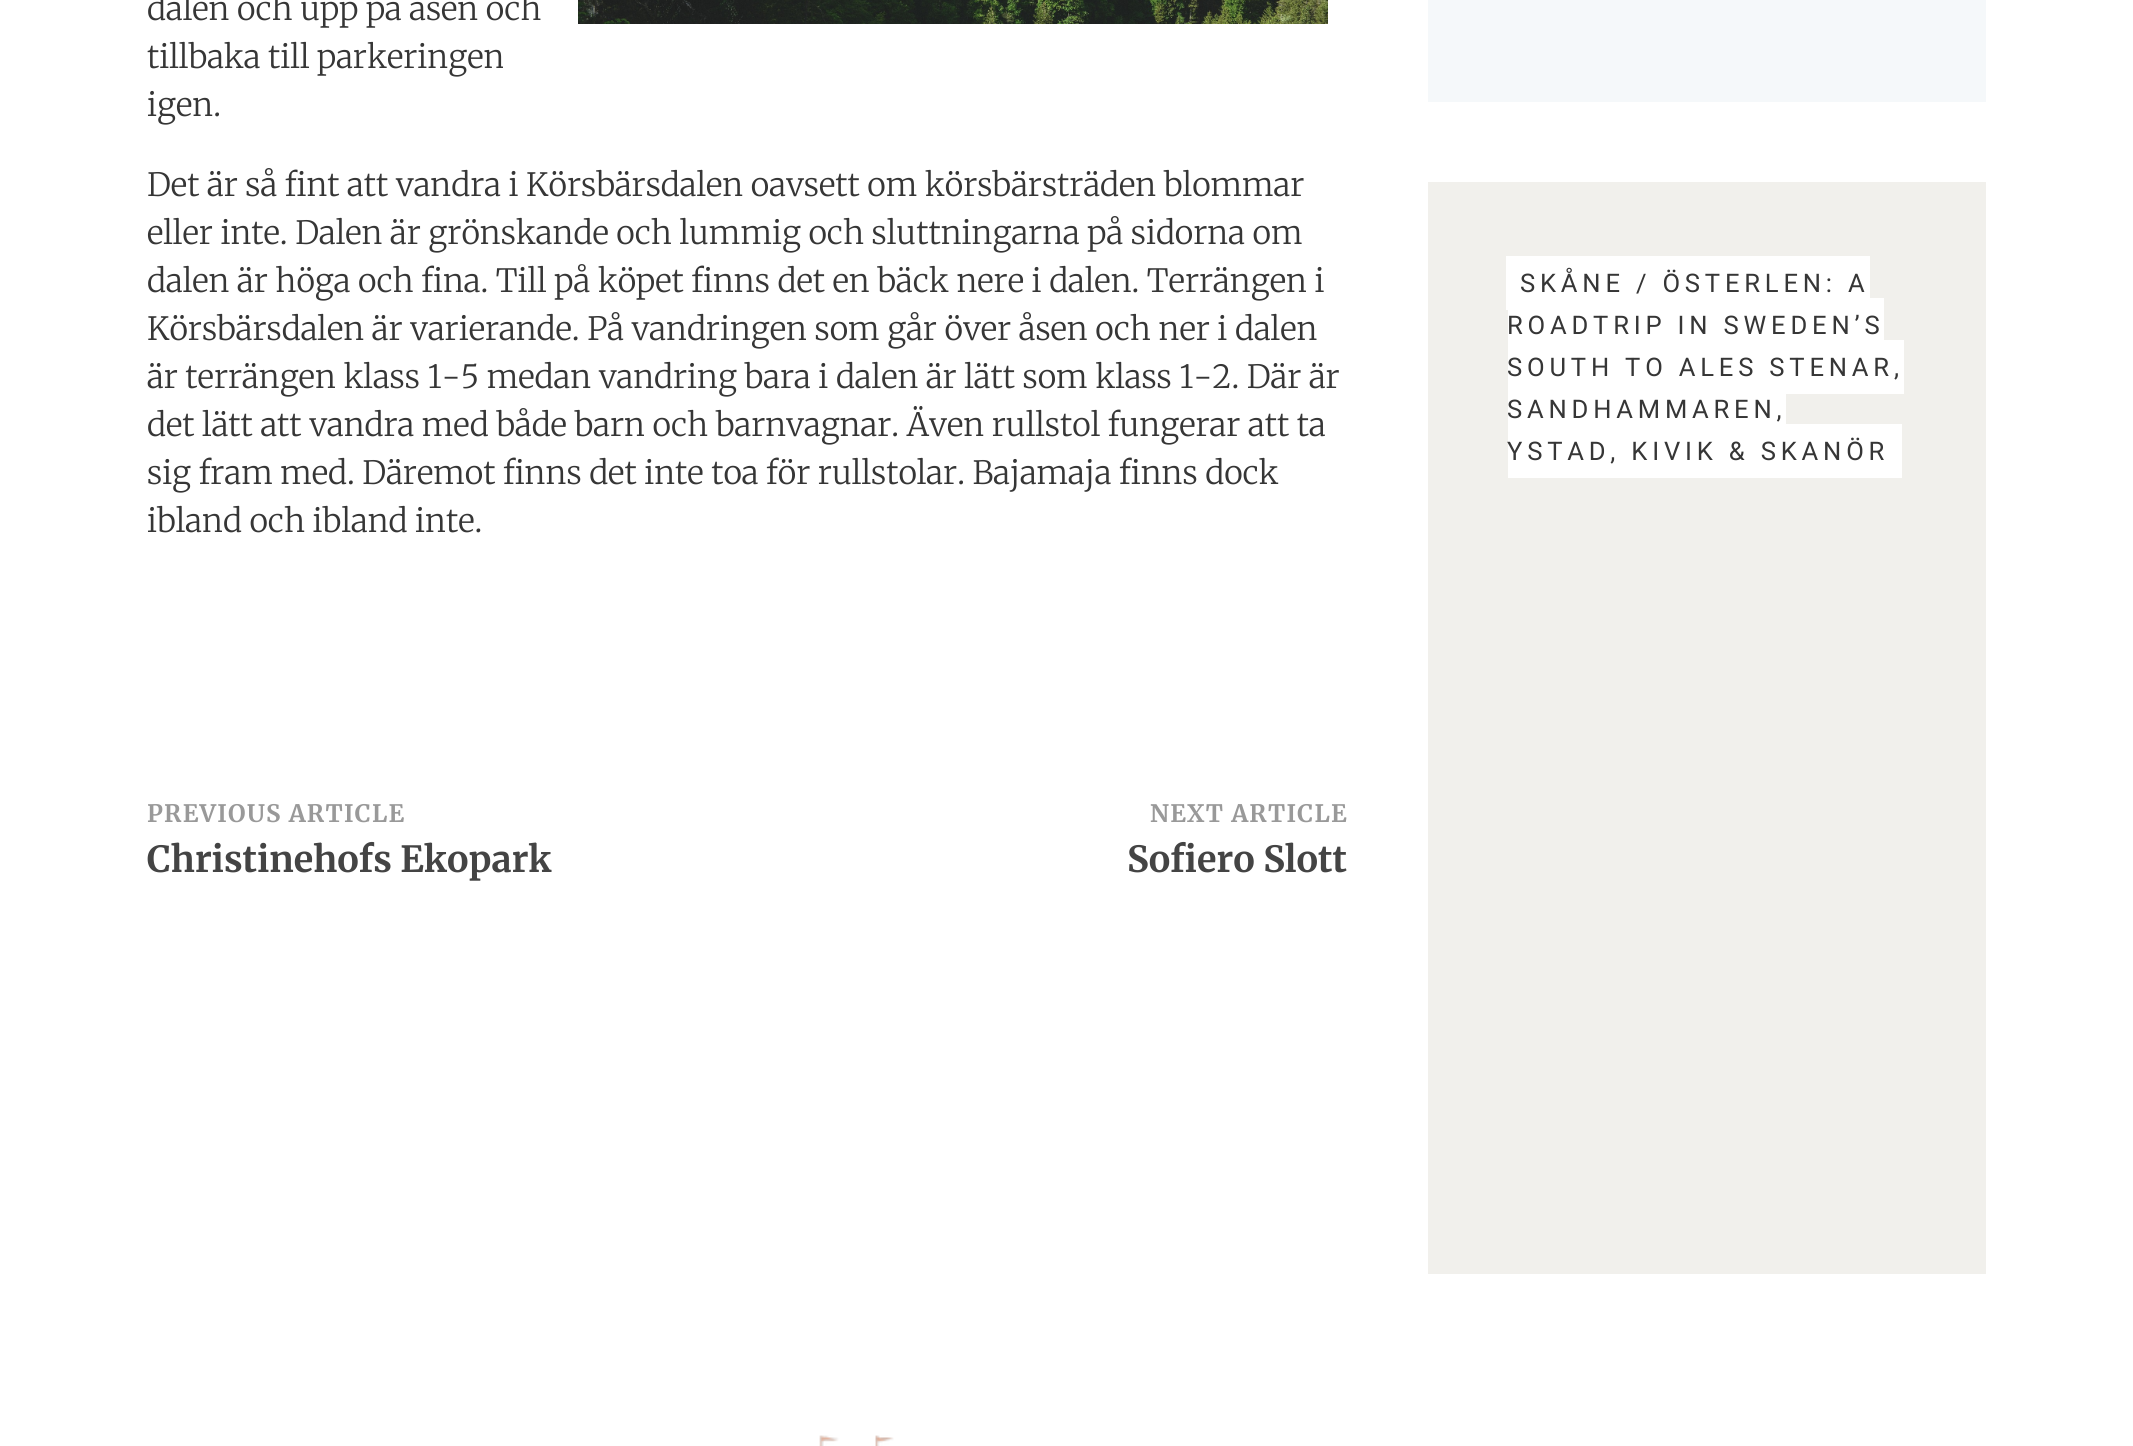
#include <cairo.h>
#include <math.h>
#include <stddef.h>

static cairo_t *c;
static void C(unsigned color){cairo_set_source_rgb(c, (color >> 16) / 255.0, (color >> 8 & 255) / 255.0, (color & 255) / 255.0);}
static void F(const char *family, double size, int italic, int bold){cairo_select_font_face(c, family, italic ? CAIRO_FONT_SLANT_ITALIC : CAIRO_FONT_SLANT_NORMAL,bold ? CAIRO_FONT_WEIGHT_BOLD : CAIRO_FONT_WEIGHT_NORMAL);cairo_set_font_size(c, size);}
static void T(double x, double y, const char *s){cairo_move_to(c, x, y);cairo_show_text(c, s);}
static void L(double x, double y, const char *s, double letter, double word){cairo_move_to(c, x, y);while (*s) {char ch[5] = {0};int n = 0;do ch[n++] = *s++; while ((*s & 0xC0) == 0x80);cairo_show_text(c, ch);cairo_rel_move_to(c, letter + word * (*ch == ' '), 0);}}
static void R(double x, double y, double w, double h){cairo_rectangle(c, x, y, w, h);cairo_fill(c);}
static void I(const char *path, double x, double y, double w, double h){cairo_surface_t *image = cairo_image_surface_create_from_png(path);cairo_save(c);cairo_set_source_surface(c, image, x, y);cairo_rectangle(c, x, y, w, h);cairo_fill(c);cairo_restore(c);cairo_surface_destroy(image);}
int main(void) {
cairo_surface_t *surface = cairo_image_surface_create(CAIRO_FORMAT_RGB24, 2133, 1446);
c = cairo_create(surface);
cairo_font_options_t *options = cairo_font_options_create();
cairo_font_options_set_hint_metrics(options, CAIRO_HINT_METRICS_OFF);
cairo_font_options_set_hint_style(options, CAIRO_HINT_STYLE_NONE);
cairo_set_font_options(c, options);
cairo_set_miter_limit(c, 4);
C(0xffffff);
cairo_paint(c);
F("Merriweather Light",32,0,0);
C(0x363636);
T(147,20,"dalen och upp på åsen och");
I("1.png",578,0,750,24);
T(147,68,"tillbaka till parkeringen");
T(147,116,"igen.");
T(147,196,"Det är så fint att vandra i Körsbärsdalen oavsett om körsbärsträden blommar");
T(147,244,"eller inte. Dalen är grönskande och lummig och sluttningarna på sidorna om");
T(147,292,"dalen är höga och fina. Till på köpet finns det en bäck nere i dalen. Terrängen i");
T(147,340,"Körsbärsdalen är varierande. På vandringen som går över åsen och ner i dalen");
T(147,388,"är terrängen klass 1-5 medan vandring bara i dalen är lätt som klass 1-2. Där är");
T(147,436,"det lätt att vandra med både barn och barnvagnar. Även rullstol fungerar att ta");
T(147,484,"sig fram med. Däremot finns det inte toa för rullstolar. Bajamaja finns dock");
T(147,532,"ibland och ibland inte.");
F("Merriweather",24,0,1);
C(0x999999);
L(147,822,"PREVIOUS ARTICLE",1.25,0);
F("Merriweather",36,0,1);
C(0x444444);
T(147,872,"Christinehofs Ekopark");
F("Merriweather",24,0,1);
C(0x999999);
L(1150,822,"NEXT ARTICLE",1.25,0);
F("Merriweather",36,0,1);
C(0x444444);
T(1127,872,"Sofiero Slott");
C(0xf5f8fa);
R(1428,0,558,102);
C(0xf1f0ec);
R(1428,182,558,1092);
C(0xffffff);
R(1506,256,364,54);
F("Roboto",25.6,0,0);
C(0x363636);
L(1520,292,"SKÅNE / ÖSTERLEN: A",4.8,0);
C(0xffffff);
R(1508,298,376,42);
C(0x363636);
L(1507,334,"ROADTRIP IN SWEDEN’S",4.8,0);
C(0xffffff);
R(1508,340,396,54);
C(0x363636);
L(1507,376,"SOUTH TO ALES STENAR,",4.8,0);
C(0xffffff);
R(1508,394,278,30);
C(0x363636);
L(1507,418,"SANDHAMMAREN,",4.8,0);
C(0xffffff);
R(1508,424,394,54);
C(0x363636);
L(1507,460,"YSTAD, KIVIK & SKANÖR",4.8,0);
I("2.png",819,1435,75,11);
cairo_surface_write_to_png(surface, "o.png");
cairo_font_options_destroy(options);
cairo_destroy(c);
cairo_surface_destroy(surface);
return 0;
}
